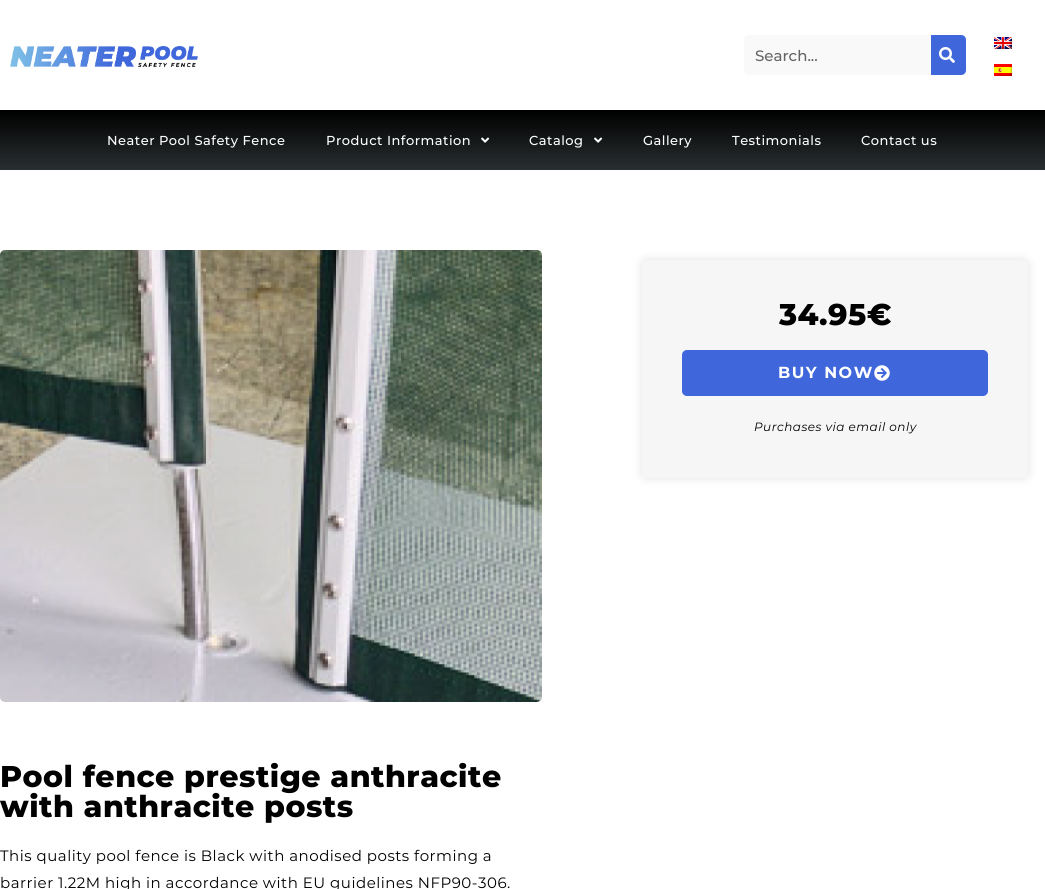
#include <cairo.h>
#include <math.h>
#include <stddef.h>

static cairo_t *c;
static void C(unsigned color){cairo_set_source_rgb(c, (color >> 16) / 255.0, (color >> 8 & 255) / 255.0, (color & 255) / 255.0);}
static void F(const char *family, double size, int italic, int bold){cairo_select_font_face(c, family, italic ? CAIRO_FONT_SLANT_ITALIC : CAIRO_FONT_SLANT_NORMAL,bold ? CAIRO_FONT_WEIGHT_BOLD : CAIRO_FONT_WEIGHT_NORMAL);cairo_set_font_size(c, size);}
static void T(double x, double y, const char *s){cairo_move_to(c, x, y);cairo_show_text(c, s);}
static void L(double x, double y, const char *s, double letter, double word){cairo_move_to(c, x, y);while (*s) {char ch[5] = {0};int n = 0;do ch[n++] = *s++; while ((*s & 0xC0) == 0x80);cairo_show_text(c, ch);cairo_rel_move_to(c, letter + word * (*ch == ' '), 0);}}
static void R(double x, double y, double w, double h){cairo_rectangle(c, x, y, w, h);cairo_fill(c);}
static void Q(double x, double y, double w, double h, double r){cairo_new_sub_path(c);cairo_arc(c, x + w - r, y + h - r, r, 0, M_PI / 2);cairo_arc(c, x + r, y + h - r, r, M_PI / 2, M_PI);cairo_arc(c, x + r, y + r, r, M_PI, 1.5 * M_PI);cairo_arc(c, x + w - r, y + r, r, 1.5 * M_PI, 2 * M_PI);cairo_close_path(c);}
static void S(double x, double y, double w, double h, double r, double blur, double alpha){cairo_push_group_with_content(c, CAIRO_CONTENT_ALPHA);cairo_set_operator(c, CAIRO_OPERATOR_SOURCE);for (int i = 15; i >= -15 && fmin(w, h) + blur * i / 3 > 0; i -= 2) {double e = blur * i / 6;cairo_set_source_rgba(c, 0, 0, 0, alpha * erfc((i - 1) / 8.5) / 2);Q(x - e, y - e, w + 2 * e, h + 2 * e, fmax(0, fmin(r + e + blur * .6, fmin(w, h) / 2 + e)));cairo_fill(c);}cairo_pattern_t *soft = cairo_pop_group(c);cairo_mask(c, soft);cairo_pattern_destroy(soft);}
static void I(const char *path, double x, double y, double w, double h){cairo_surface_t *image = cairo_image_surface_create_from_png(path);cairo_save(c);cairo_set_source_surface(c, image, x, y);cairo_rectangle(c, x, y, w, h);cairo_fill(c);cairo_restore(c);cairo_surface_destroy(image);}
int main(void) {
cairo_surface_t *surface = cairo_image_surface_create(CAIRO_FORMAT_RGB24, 1045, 889);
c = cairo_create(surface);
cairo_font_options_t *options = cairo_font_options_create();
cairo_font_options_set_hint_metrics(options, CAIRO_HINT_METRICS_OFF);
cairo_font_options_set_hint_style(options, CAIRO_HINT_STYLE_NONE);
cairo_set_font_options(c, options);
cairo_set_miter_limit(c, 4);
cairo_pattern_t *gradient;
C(0xffffff);
cairo_paint(c);
I("1.png",10,46,188,21);
C(0xf9f9f9);
Q(744,35,222,40,5);
cairo_fill(c);
F("Montserrat Medium",15,0,0);
C(0x646464);
T(755,61,"Search...");
C(0x3f67db);
cairo_new_path(c);
cairo_move_to(c,931,35);
cairo_line_to(c,961,35);
cairo_curve_to(c,964,35,966,37,966,40);
cairo_line_to(c,966,70);
cairo_curve_to(c,966,73,964,75,961,75);
cairo_line_to(c,931,75);
cairo_close_path(c);
cairo_fill(c);
I("2.png",939,47,16,16);
I("3.png",994,37,18,12);
I("4.png",994,64,18,12);
gradient = cairo_pattern_create_linear(523,110,523,170);
cairo_pattern_add_color_stop_rgba(gradient,0,0,0,0,1);
cairo_pattern_add_color_stop_rgba(gradient,1,0.161,0.184,0.192,1);
cairo_set_source(c,gradient);
cairo_pattern_destroy(gradient);
R(0,110,1045,60);
F("Montserrat Medium",13,0,0);
C(0xffffff);
L(107,145,"Neater Pool Safety Fence",.5,0);
L(326,145,"Product Information",.5,0);
I("5.png",481,137,9,6);
L(529,145,"Catalog",.5,0);
I("5.png",594,137,9,6);
L(643,145,"Gallery",.5,0);
L(732,145,"Testimonials",.5,0);
L(861,145,"Contact us",.5,0);
C(0xc5c5c5);
S(642,260,386,218,5,5,.5);
C(0xf6f6f6);
Q(642,260,386,218,5);
cairo_fill(c);
F("Montserrat ExtraBold",30,0,0);
C(0x000000);
L(779,325,"34.95€",.5,0);
C(0x3f67db);
Q(682,350,306,46,5);
cairo_fill(c);
F("Montserrat",16,0,1);
C(0xffffff);
L(778,378,"BUY NOW",1.5,0);
I("6.png",874,365,16,16);
F("Montserrat",12,1,0);
C(0x000000);
L(754,431,"Purchases via email only",.5,0);
I("7.png",0,250,542,452);
F("Montserrat ExtraBold",30,0,0);
L(0,787,"Pool fence prestige anthracite",.5,0);
L(0,817,"with anthracite posts",.5,0);
F("Montserrat",15,0,0);
L(0,861,"This quality pool fence is Black with anodised posts forming a",.5,0);
L(0,888,"barrier 1.22M high in accordance with EU guidelines NFP90-306.",.5,0);
cairo_surface_write_to_png(surface, "o.png");
cairo_font_options_destroy(options);
cairo_destroy(c);
cairo_surface_destroy(surface);
return 0;
}
